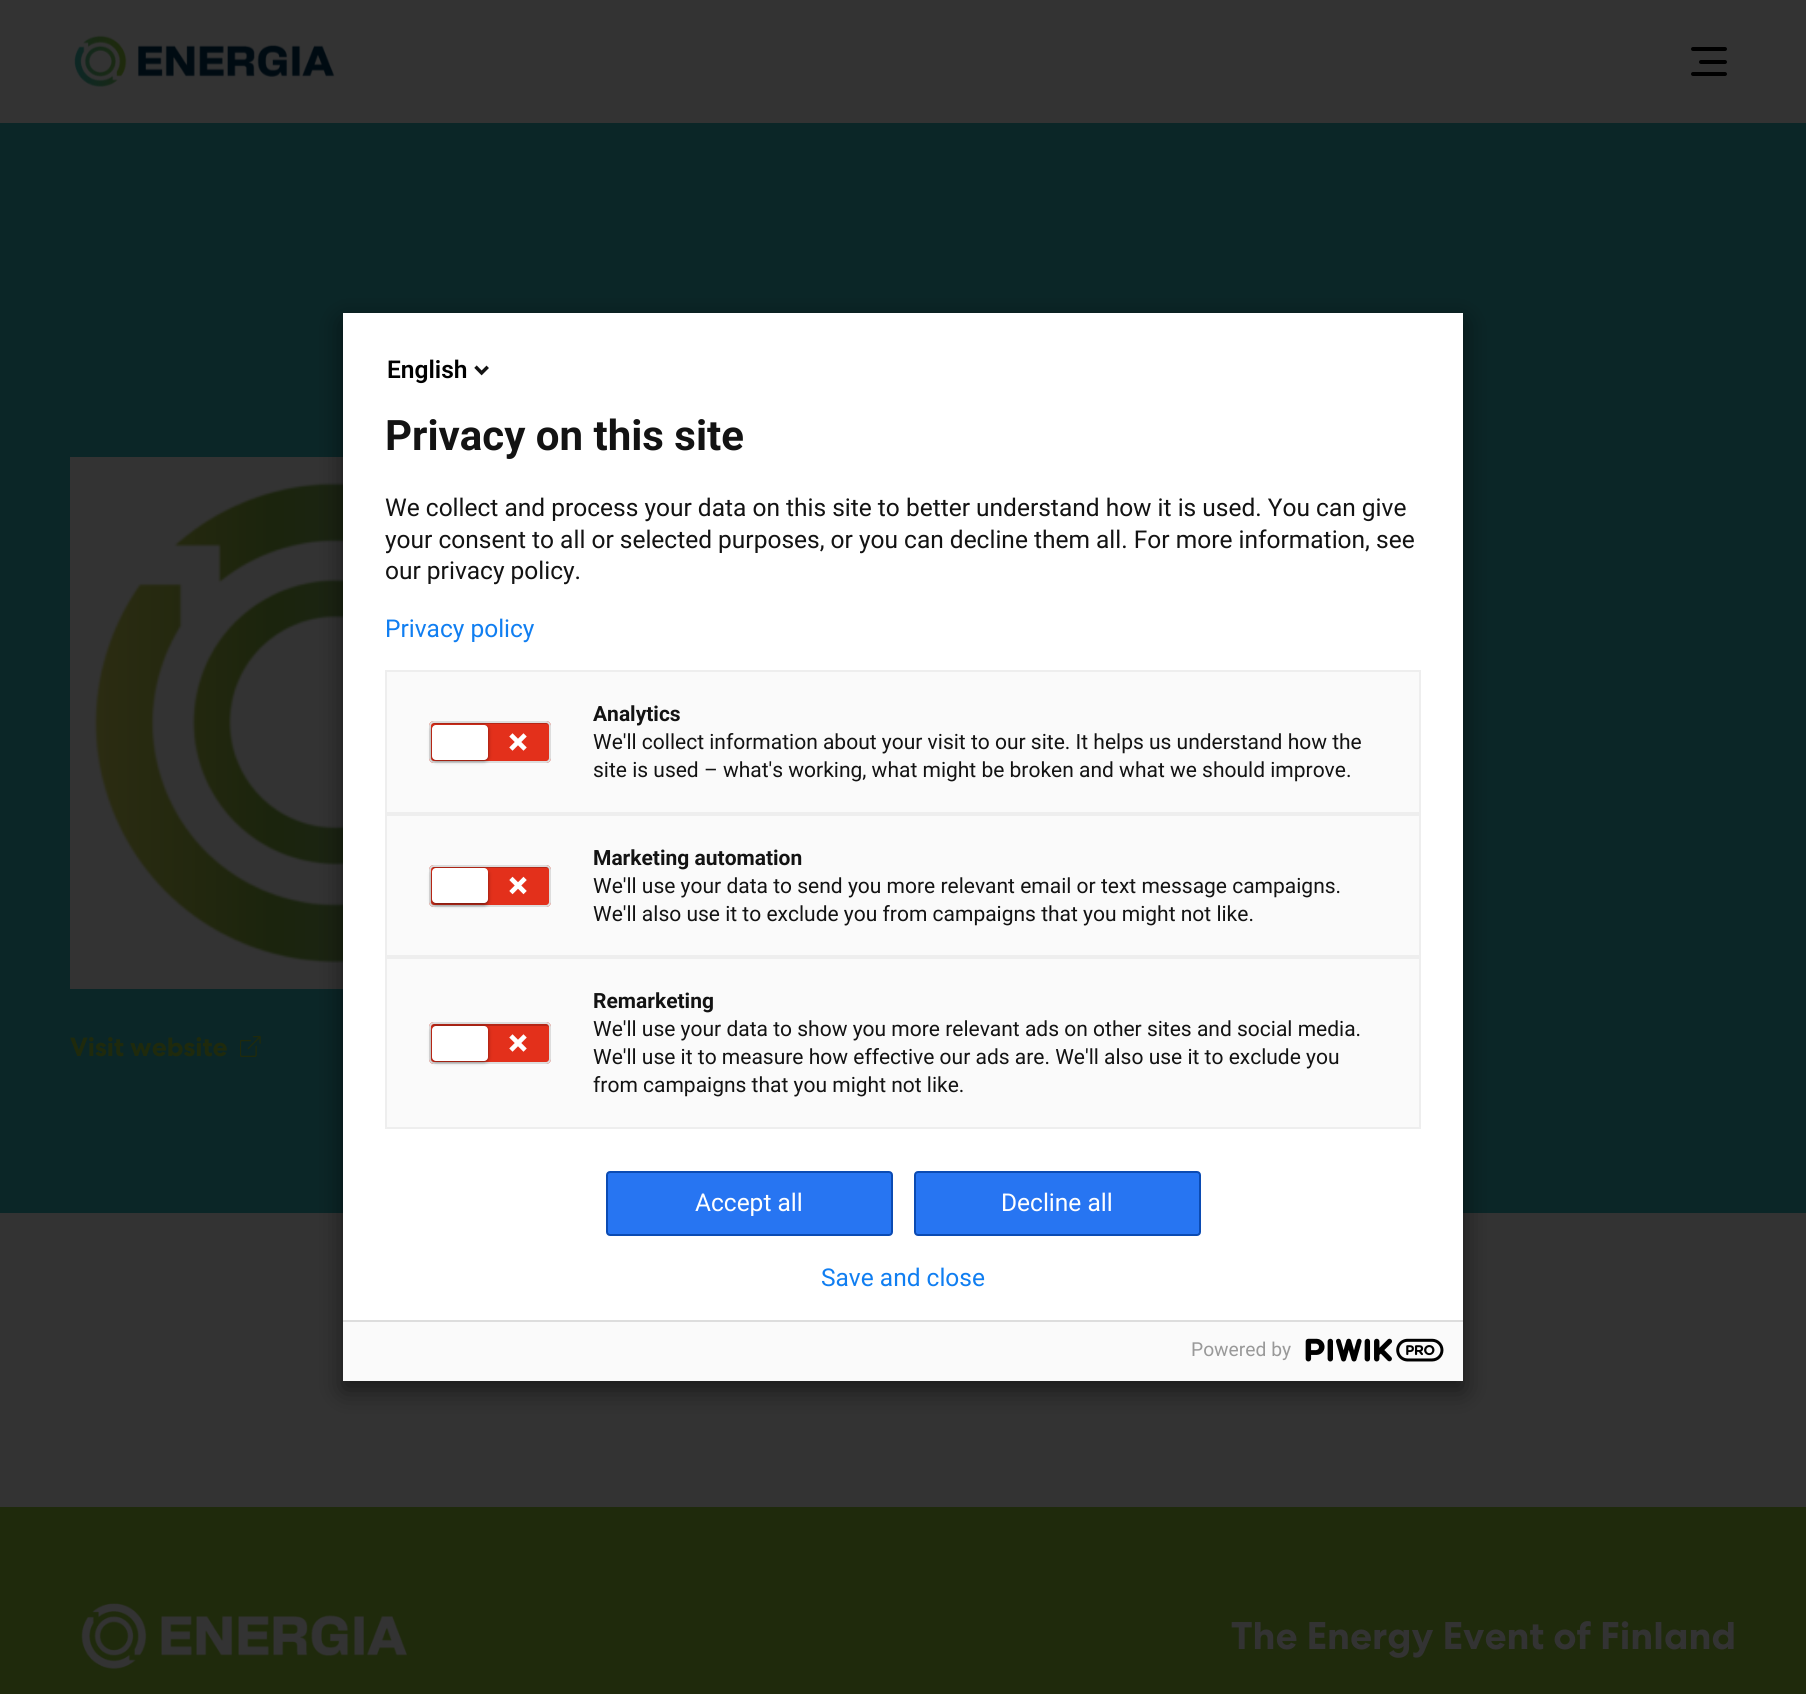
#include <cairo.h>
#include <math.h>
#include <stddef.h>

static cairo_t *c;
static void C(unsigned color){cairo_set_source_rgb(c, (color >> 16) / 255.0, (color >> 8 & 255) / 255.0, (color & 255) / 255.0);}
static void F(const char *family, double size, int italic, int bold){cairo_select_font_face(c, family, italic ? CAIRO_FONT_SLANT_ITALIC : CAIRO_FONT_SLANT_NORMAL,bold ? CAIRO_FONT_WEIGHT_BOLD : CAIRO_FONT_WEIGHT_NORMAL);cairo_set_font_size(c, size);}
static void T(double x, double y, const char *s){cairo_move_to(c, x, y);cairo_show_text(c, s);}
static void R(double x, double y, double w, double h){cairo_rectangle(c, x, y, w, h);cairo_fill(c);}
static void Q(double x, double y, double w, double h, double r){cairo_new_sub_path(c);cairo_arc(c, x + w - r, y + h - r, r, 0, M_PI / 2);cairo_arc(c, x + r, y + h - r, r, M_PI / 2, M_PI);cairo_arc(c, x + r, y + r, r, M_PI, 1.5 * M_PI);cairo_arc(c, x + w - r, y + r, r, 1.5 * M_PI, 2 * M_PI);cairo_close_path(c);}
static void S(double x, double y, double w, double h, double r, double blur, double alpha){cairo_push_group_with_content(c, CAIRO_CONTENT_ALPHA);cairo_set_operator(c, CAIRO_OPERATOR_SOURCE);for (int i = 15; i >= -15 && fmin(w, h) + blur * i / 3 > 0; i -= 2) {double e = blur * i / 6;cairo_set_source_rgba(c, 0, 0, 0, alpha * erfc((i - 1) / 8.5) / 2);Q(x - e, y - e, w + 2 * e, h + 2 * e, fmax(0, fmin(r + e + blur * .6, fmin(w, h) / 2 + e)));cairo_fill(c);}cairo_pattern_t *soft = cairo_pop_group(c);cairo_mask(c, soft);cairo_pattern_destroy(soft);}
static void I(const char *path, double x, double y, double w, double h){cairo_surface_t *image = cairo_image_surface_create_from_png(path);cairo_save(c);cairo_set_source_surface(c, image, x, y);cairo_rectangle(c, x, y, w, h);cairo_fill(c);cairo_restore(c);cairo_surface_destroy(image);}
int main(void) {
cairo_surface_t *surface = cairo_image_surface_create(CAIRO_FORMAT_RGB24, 1806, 1694);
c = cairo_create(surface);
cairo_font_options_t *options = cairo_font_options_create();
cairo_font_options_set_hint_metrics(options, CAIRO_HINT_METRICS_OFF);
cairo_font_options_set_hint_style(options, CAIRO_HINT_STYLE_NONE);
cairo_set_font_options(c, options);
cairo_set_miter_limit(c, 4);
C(0x333333);
cairo_paint(c);
I("1.png",74,35,261,52);
C(0x000000);
Q(1691,47,36,4,2);
cairo_fill(c);
Q(1699,60,28,4,2);
cairo_fill(c);
Q(1691,72,36,4,2);
cairo_fill(c);
C(0x0b2627);
R(0,123,1806,1090);
C(0x333333);
R(70,457,273,532);
I("2.png",94,482,249,481);
F("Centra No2",26.25,0,1);
C(0x1f2a0c);
T(70,1056,"Visit website");
I("3.png",240,1036,21,21);
C(0x000000);
S(343,322,1120,1068,0,13,.5);
C(0xffffff);
R(343,313,1120,1007);
F("Roboto SemiBold",24.5,0,0);
C(0x000000);
T(387,378,"English");
I("4.png",474,365,15,11);
F("Roboto",42,0,1);
C(0x131313);
T(385,450,"Privacy on this site");
F("Roboto",24.5,0,0);
T(385,516,"We collect and process your data on this site to better understand how it is used. You can give");
T(385,548,"your consent to all or selected purposes, or you can decline them all. For more information, see");
T(385,579,"our privacy policy.");
C(0x107ef1);
T(385,637,"Privacy policy");
C(0xfafafa);
cairo_rectangle(c,386,671,1034,142);
cairo_fill_preserve(c);
C(0xeeeeee);
cairo_stroke(c);
C(0xe3301b);
Q(429,721,122,42,5);
cairo_fill(c);
C(0xb62616);
cairo_new_path(c);
cairo_move_to(c,434,724);
cairo_line_to(c,546,724);
cairo_curve_to(c,548,724,550,726,550,728);
cairo_line_to(c,550,727);
cairo_curve_to(c,550,725,548,723,546,723);
cairo_line_to(c,435,723);
cairo_curve_to(c,434,723,432,724,432,725);
cairo_close_path(c);
cairo_fill(c);
Q(430,722,120,40,4);
C(0xdddddd);
cairo_stroke(c);
C(0x000000);
S(432,726,56,35,4,2,.5);
C(0xffffff);
Q(432,725,56,35,4);
cairo_fill(c);
I("5.png",509,733,18,18);
F("Roboto",21,0,1);
C(0x131313);
T(593,721,"Analytics");
F("Roboto",21,0,0);
T(593,749,"We'll collect information about your visit to our site. It helps us understand how the");
T(593,777,"site is used – what's working, what might be broken and what we should improve.");
C(0xfafafa);
cairo_rectangle(c,386,815,1034,141);
cairo_fill_preserve(c);
C(0xeeeeee);
cairo_stroke(c);
C(0xe3301b);
Q(429,865,122,42,5);
cairo_fill(c);
C(0xb62616);
cairo_new_path(c);
cairo_move_to(c,434,868);
cairo_line_to(c,546,868);
cairo_curve_to(c,548,868,550,870,550,872);
cairo_line_to(c,550,870);
cairo_curve_to(c,550,868,548,866,546,866);
cairo_line_to(c,435,866);
cairo_curve_to(c,433,866,431,868,431,869);
cairo_close_path(c);
cairo_fill(c);
Q(430,866,120,40,4);
C(0xdddddd);
cairo_stroke(c);
C(0x000000);
S(432,870,56,35,4,2,.5);
C(0xffffff);
Q(432,868,56,35,4);
cairo_fill(c);
I("6.png",509,876,18,19);
F("Roboto",21,0,1);
C(0x131313);
T(593,865,"Marketing automation");
F("Roboto",21,0,0);
T(593,893,"We'll use your data to send you more relevant email or text message campaigns.");
T(593,921,"We'll also use it to exclude you from campaigns that you might not like.");
C(0xfafafa);
cairo_rectangle(c,386,958,1034,170);
cairo_fill_preserve(c);
C(0xeeeeee);
cairo_stroke(c);
C(0xe3301b);
Q(429,1022,122,42,5);
cairo_fill(c);
C(0xb62616);
cairo_new_path(c);
cairo_move_to(c,434,1026);
cairo_line_to(c,546,1026);
cairo_curve_to(c,548,1026,550,1027,550,1029);
cairo_line_to(c,550,1028);
cairo_curve_to(c,550,1026,548,1024,546,1024);
cairo_line_to(c,435,1024);
cairo_curve_to(c,433,1024,432,1025,431,1027);
cairo_close_path(c);
cairo_fill(c);
Q(430,1023,120,40,4);
C(0xdddddd);
cairo_stroke(c);
C(0x000000);
S(432,1027,56,35,4,2,.5);
C(0xffffff);
Q(432,1026,56,35,4);
cairo_fill(c);
I("5.png",509,1034,18,18);
F("Roboto",21,0,1);
C(0x131313);
T(593,1008,"Remarketing");
F("Roboto",21,0,0);
T(593,1036,"We'll use your data to show you more relevant ads on other sites and social media.");
T(593,1064,"We'll use it to measure how effective our ads are. We'll also use it to exclude you");
T(593,1092,"from campaigns that you might not like.");
C(0x2775f2);
Q(607,1172,285,63,3);
cairo_fill_preserve(c);
C(0x0b4bb3);
cairo_stroke(c);
F("Roboto",24.5,0,0);
C(0xffffff);
T(695,1211,"Accept all");
C(0x2775f2);
Q(915,1172,285,63,3);
cairo_fill_preserve(c);
C(0x0b4bb3);
cairo_stroke(c);
C(0xffffff);
T(1001,1211,"Decline all");
C(0x107ef1);
T(821,1286,"Save and close");
C(0xfafafa);
R(343,1322,1120,59);
C(0xdddddd);
R(343,1320,1120,2);
F("Roboto",19.25,0,0);
C(0x999999);
T(1191,1356,"Powered by");
I("7.png",1305,1338,139,24);
C(0x1f2a0c);
R(0,1507,1806,187);
I("8.png",81,1603,326,66);
F("Centra No2",38.5,0,1);
C(0x333333);
T(1231,1649,"The Energy Event of Finland");
cairo_surface_write_to_png(surface, "o.png");
cairo_font_options_destroy(options);
cairo_destroy(c);
cairo_surface_destroy(surface);
return 0;
}
